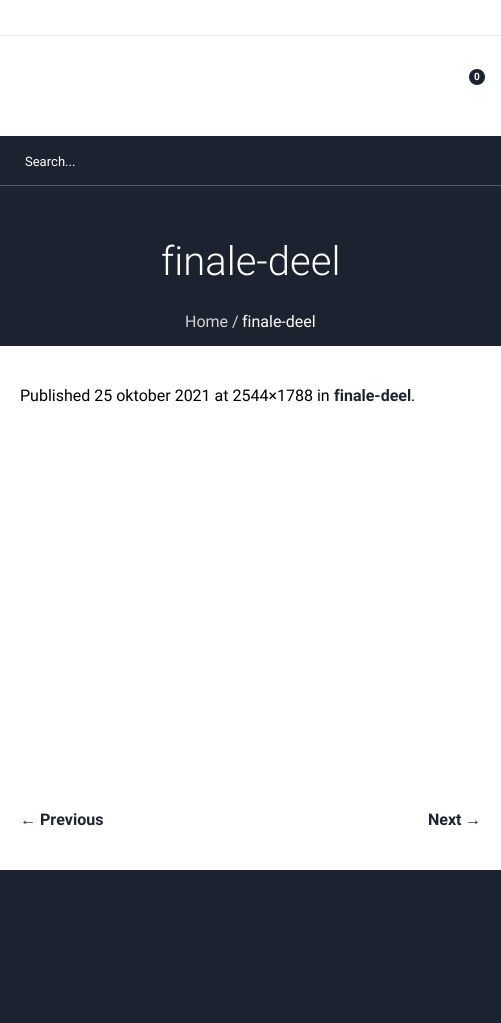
#include <cairo.h>
#include <math.h>
#include <stddef.h>

static cairo_t *c;
static void C(unsigned color){cairo_set_source_rgb(c, (color >> 16) / 255.0, (color >> 8 & 255) / 255.0, (color & 255) / 255.0);}
static void F(const char *family, double size, int italic, int bold){cairo_select_font_face(c, family, italic ? CAIRO_FONT_SLANT_ITALIC : CAIRO_FONT_SLANT_NORMAL,bold ? CAIRO_FONT_WEIGHT_BOLD : CAIRO_FONT_WEIGHT_NORMAL);cairo_set_font_size(c, size);}
static void T(double x, double y, const char *s){cairo_move_to(c, x, y);cairo_show_text(c, s);}
static void R(double x, double y, double w, double h){cairo_rectangle(c, x, y, w, h);cairo_fill(c);}
int main(void) {
cairo_surface_t *surface = cairo_image_surface_create(CAIRO_FORMAT_RGB24, 501, 1023);
c = cairo_create(surface);
cairo_font_options_t *options = cairo_font_options_create();
cairo_font_options_set_hint_metrics(options, CAIRO_HINT_METRICS_OFF);
cairo_font_options_set_hint_style(options, CAIRO_HINT_STYLE_NONE);
cairo_set_font_options(c, options);
cairo_set_miter_limit(c, 4);
C(0xffffff);
cairo_paint(c);
C(0xe9e9e9);
R(0,35,501,1);
C(0x1c222f);
cairo_arc(c,477,77,8,0,2 * M_PI);
cairo_fill(c);
F("Roboto",10,0,1);
C(0xffffff);
T(474,80,"0");
C(0x1c222f);
R(0,136,501,49);
F("Roboto",13,0,0);
C(0xffffff);
T(25,166,"Search...");
C(0x555963);
R(0,185,501,1);
C(0x1c222f);
R(0,186,501,160);
F("Roboto Light",40,0,0);
C(0xffffff);
T(161,275,"finale-deel");
F("Roboto",16,0,0);
C(0xd2d3d5);
T(185,327,"Home /");
C(0xffffff);
T(242,327,"finale-deel");
C(0x000000);
T(20,401,"Published 25 oktober 2021 at 2544×1788 in");
F("Roboto",16,0,1);
C(0x1c222f);
T(334,401,"finale-deel");
F("Roboto",16,0,0);
C(0x000000);
T(411,401,".");
F("Liberation Sans",16,0,1);
C(0x1c222f);
T(20,825,"←");
F("Roboto",16,0,1);
T(40,825,"Previous");
T(428,825,"Next");
F("Liberation Sans",16,0,1);
T(465,825,"→");
R(0,870,501,153);
cairo_surface_write_to_png(surface, "o.png");
cairo_font_options_destroy(options);
cairo_destroy(c);
cairo_surface_destroy(surface);
return 0;
}
